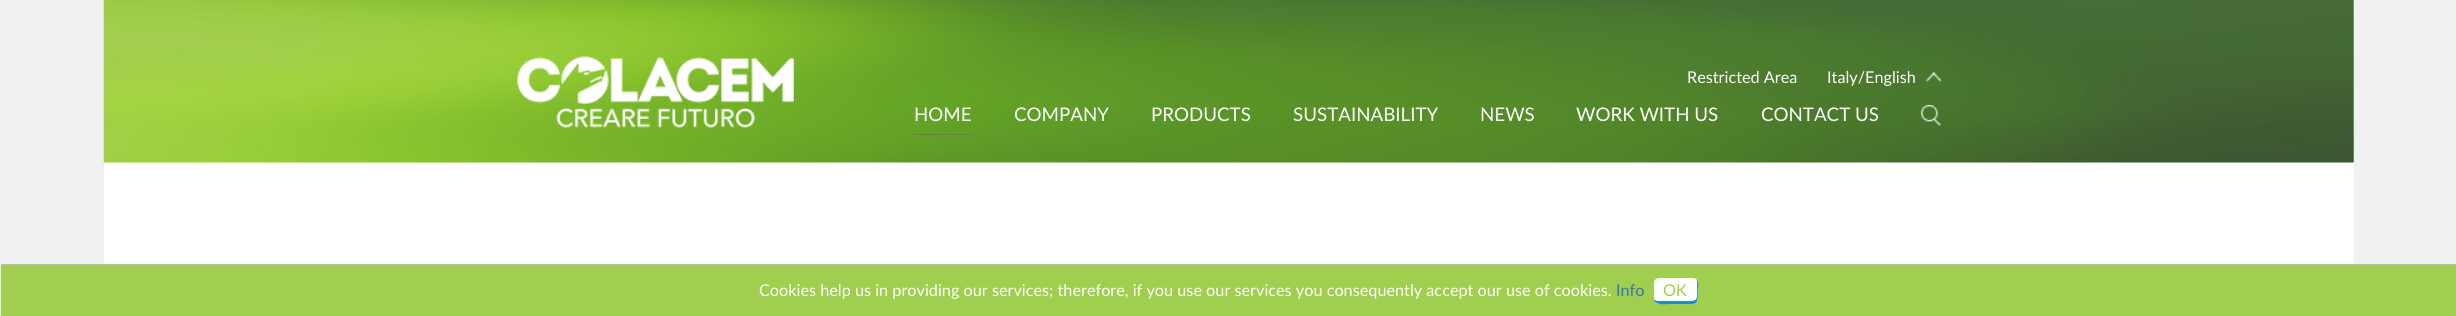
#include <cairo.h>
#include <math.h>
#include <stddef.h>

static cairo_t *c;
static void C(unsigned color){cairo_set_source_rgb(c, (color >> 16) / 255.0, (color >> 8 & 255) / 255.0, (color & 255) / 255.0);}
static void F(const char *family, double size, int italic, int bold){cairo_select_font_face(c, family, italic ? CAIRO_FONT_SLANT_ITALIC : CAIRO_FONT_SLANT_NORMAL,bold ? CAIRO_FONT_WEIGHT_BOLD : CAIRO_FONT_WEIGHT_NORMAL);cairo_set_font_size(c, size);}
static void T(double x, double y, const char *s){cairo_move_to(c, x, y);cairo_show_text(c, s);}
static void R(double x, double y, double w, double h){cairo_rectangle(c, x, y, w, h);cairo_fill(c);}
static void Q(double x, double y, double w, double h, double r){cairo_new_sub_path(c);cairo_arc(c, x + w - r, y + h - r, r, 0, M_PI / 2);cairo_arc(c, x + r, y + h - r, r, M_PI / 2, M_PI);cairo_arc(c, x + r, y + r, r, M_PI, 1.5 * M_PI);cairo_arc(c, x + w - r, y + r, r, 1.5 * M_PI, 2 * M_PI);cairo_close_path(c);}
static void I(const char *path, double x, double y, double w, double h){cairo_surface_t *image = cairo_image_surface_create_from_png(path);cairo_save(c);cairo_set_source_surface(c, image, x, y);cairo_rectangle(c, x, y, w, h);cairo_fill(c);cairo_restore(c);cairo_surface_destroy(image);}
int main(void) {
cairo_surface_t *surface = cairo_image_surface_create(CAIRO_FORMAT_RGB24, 2456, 316);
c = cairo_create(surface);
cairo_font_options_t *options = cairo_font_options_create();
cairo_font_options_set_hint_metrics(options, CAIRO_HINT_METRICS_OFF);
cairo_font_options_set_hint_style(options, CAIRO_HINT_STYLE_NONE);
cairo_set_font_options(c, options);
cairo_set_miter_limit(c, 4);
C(0xf1f1f1);
cairo_paint(c);
C(0xffffff);
R(104,0,2250,264);
I("1.png",103,0,2251,163);
I("2.png",517,56,277,72);
F("Lato",16.25,0,0);
T(1687,83,"Restricted Area");
T(1827,83,"Italy/English");
I("3.png",1926,72,16,10);
F("Lato",18.75,0,0);
T(914,121,"HOME");
C(0x74716c);
R(914,134,57,1);
C(0xffffff);
T(1014,121,"COMPANY");
T(1151,121,"PRODUCTS");
T(1293,121,"SUSTAINABILITY");
T(1480,121,"NEWS");
T(1576,121,"WORK WITH US");
T(1761,121,"CONTACT US");
I("4.png",1921,105,21,22);
C(0xa0ce4e);
R(1,265,2455,51);
C(0xbbbbbb);
R(1,264,2455,1);
F("Lato",16.25,0,0);
C(0xffffff);
T(759,296,"Cookies help us in providing our services; therefore, if you use our services you consequently accept our use of cookies.");
C(0x337ab7);
T(1616,296,"Info");
C(0xffffff);
Q(1654,278,44,26,5);
cairo_fill(c);
C(0x228cb9);
cairo_new_path(c);
cairo_move_to(c,1654,299);
cairo_curve_to(c,1654,306,1666,304,1670,304);
cairo_line_to(c,1682,304);
cairo_curve_to(c,1697,304,1698,306,1698,291);
cairo_curve_to(c,1698,288,1699,283,1697,280);
cairo_curve_to(c,1697,304,1701,301,1675,301);
cairo_line_to(c,1664,301);
cairo_curve_to(c,1661,301,1656,302,1654,299);
cairo_close_path(c);
cairo_fill(c);
C(0xa0ce4e);
T(1663,296,"OK");
cairo_surface_write_to_png(surface, "o.png");
cairo_font_options_destroy(options);
cairo_destroy(c);
cairo_surface_destroy(surface);
return 0;
}
